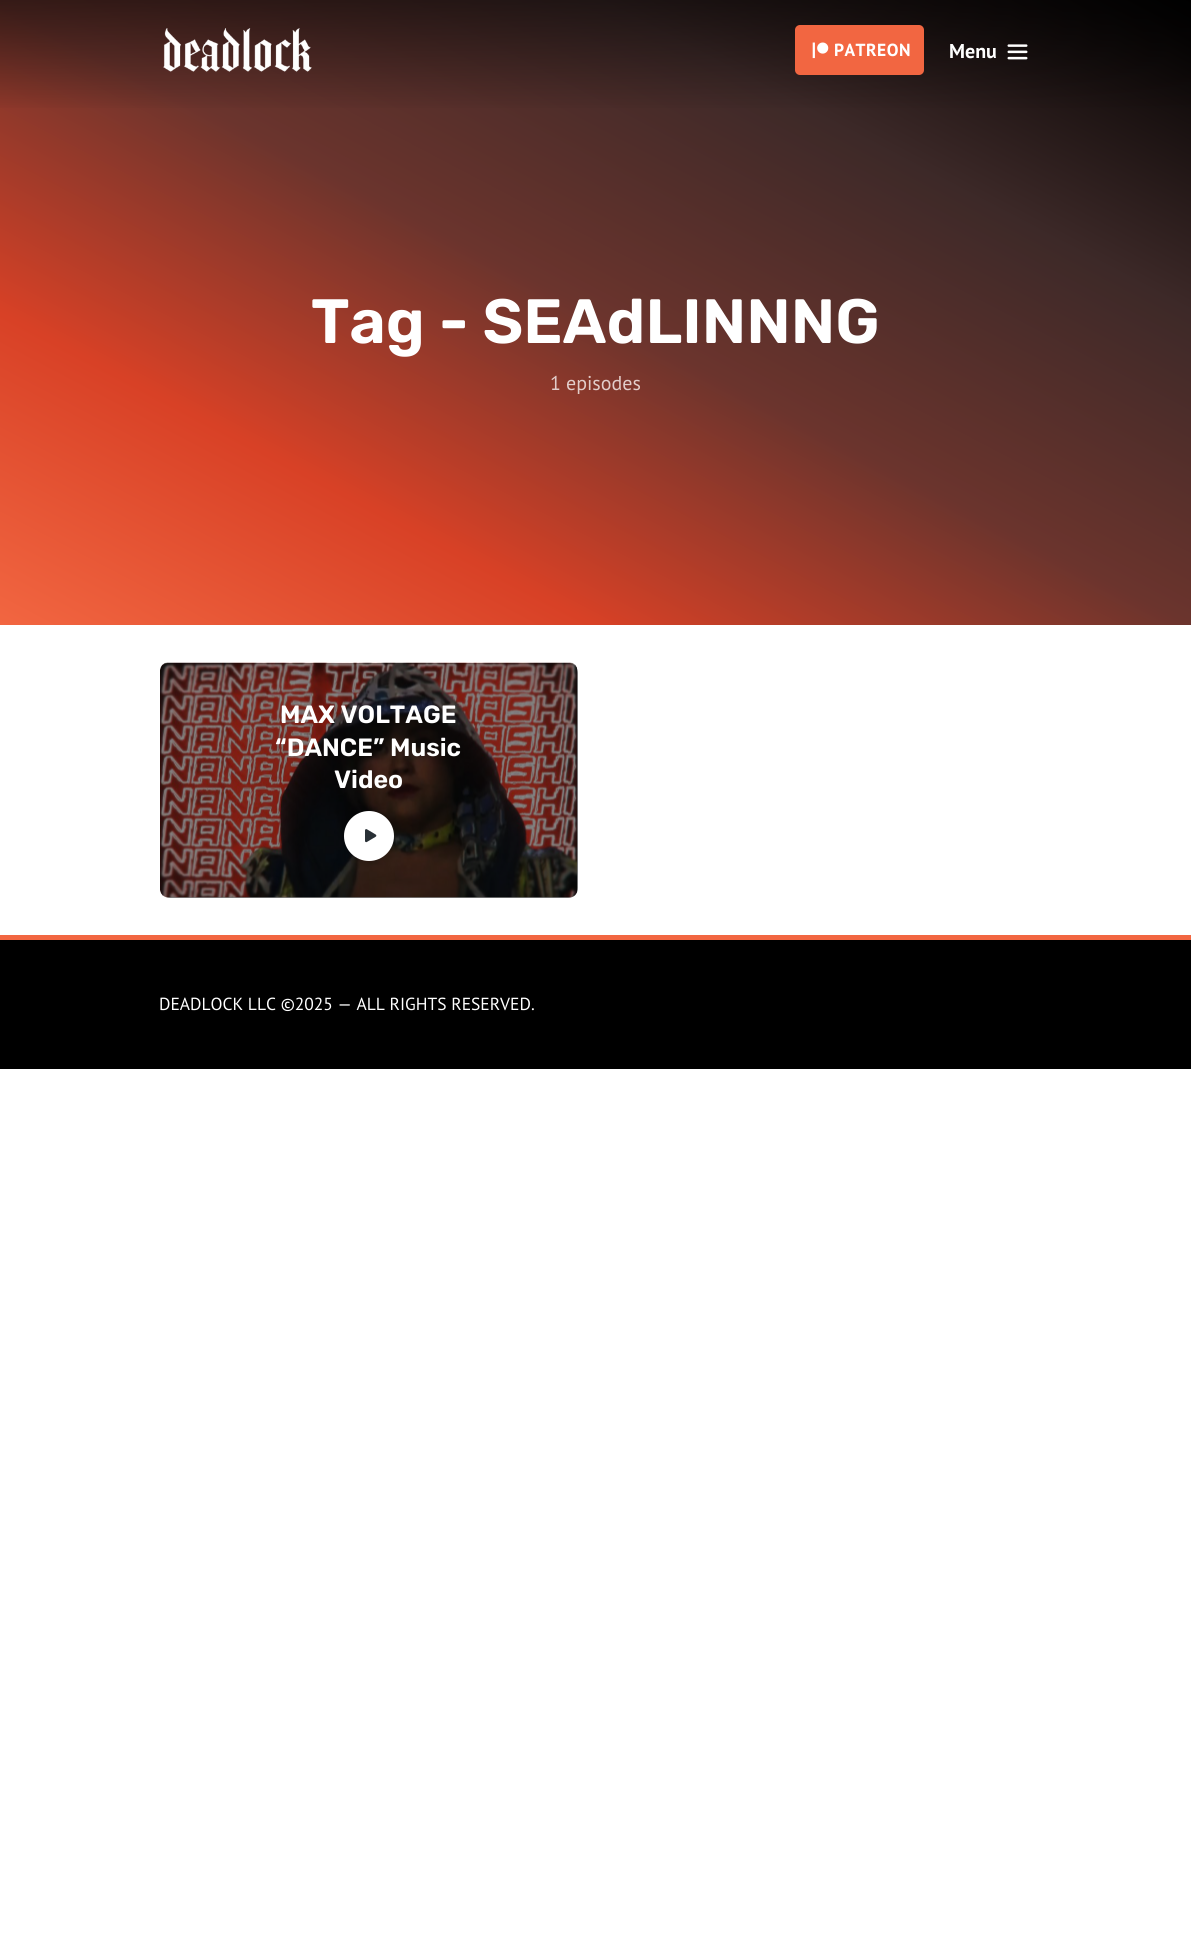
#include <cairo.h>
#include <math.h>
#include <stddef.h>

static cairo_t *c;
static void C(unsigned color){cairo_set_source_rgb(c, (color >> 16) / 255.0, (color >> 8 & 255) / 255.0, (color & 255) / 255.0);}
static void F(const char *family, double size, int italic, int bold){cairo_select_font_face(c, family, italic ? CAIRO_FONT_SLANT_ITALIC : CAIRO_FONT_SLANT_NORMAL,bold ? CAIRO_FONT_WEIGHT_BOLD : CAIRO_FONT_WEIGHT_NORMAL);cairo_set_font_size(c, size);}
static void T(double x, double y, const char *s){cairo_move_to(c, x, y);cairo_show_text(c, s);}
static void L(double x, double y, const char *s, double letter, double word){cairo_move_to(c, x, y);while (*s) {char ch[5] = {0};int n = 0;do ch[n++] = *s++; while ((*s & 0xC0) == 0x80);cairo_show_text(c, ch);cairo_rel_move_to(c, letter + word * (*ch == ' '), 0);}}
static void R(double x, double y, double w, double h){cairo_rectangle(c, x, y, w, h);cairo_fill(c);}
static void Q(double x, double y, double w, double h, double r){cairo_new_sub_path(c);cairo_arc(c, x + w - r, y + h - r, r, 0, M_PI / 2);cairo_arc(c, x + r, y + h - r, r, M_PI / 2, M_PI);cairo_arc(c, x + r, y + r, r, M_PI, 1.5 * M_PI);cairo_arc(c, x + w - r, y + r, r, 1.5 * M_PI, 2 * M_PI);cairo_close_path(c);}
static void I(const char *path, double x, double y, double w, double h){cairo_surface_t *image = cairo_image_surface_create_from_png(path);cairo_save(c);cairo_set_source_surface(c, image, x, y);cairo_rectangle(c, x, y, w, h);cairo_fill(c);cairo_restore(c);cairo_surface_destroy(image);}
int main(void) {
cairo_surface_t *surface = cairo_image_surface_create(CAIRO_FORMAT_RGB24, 1191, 1960);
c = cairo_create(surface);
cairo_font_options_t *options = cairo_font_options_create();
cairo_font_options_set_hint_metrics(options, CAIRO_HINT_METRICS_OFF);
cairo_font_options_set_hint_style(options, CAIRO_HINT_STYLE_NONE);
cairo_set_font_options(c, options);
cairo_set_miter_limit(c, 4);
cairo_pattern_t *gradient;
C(0xffffff);
cairo_paint(c);
gradient = cairo_pattern_create_linear(338,803,853,-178);
cairo_pattern_add_color_stop_rgba(gradient,0,0.949,0.4,0.255,1);
cairo_pattern_add_color_stop_rgba(gradient,.25,0.847,0.255,0.149,1);
cairo_pattern_add_color_stop_rgba(gradient,.5,0.42,0.204,0.176,1);
cairo_pattern_add_color_stop_rgba(gradient,.75,0.239,0.161,0.157,1);
cairo_pattern_add_color_stop_rgba(gradient,1,0,0,0,1);
cairo_set_source(c,gradient);
cairo_pattern_destroy(gradient);
R(0,0,1191,625);
gradient = cairo_pattern_create_linear(596,0,596,113);
cairo_pattern_add_color_stop_rgba(gradient,0,0,0,0,.5);
cairo_pattern_add_color_stop_rgba(gradient,1,0,0,0,0);
cairo_set_source(c,gradient);
cairo_pattern_destroy(gradient);
R(0,0,1191,108);
I("1.png",163,28,149,44);
C(0xf26641);
Q(795,25,129,50,5);
cairo_fill(c);
I("2.png",812,42,17,17);
F("PT Sans",17.5,0,1);
C(0xffffff);
L(834,56,"PATREON",.5,0);
F("PT Sans",20,0,1);
T(949,58,"Menu");
I("3.png",1007,44,21,16);
F("Rubik SemiBold",62.5,0,0);
T(311,343,"Tag - SEAdLINNNG");
F("PT Sans",20,0,0);
C(0xe2cdca);
T(550,390,"1");
T(566,390,"episodes");
I("4.png",160,662,418,236);
cairo_set_source_rgba(c,0.031,0.039,0.043,0.5);
Q(160,663,418,235,10);
cairo_fill(c);
F("Rubik SemiBold",25,0,0);
C(0xffffff);
T(280,723,"MAX VOLTAGE");
T(275,756,"“DANCE” Music");
T(334,788,"Video");
cairo_new_path(c);
cairo_arc(c,369,836,25,0,2 * M_PI);
cairo_fill(c);
I("5.png",365,829,12,14);
C(0x000000);
R(0,940,1191,129);
C(0xf26641);
R(0,935,1191,5);
F("PT Sans",17.5,0,0);
C(0xffffff);
T(159,1010,"DEADLOCK LLC ©2025 — ALL RIGHTS RESERVED.");
cairo_surface_write_to_png(surface, "o.png");
cairo_font_options_destroy(options);
cairo_destroy(c);
cairo_surface_destroy(surface);
return 0;
}
